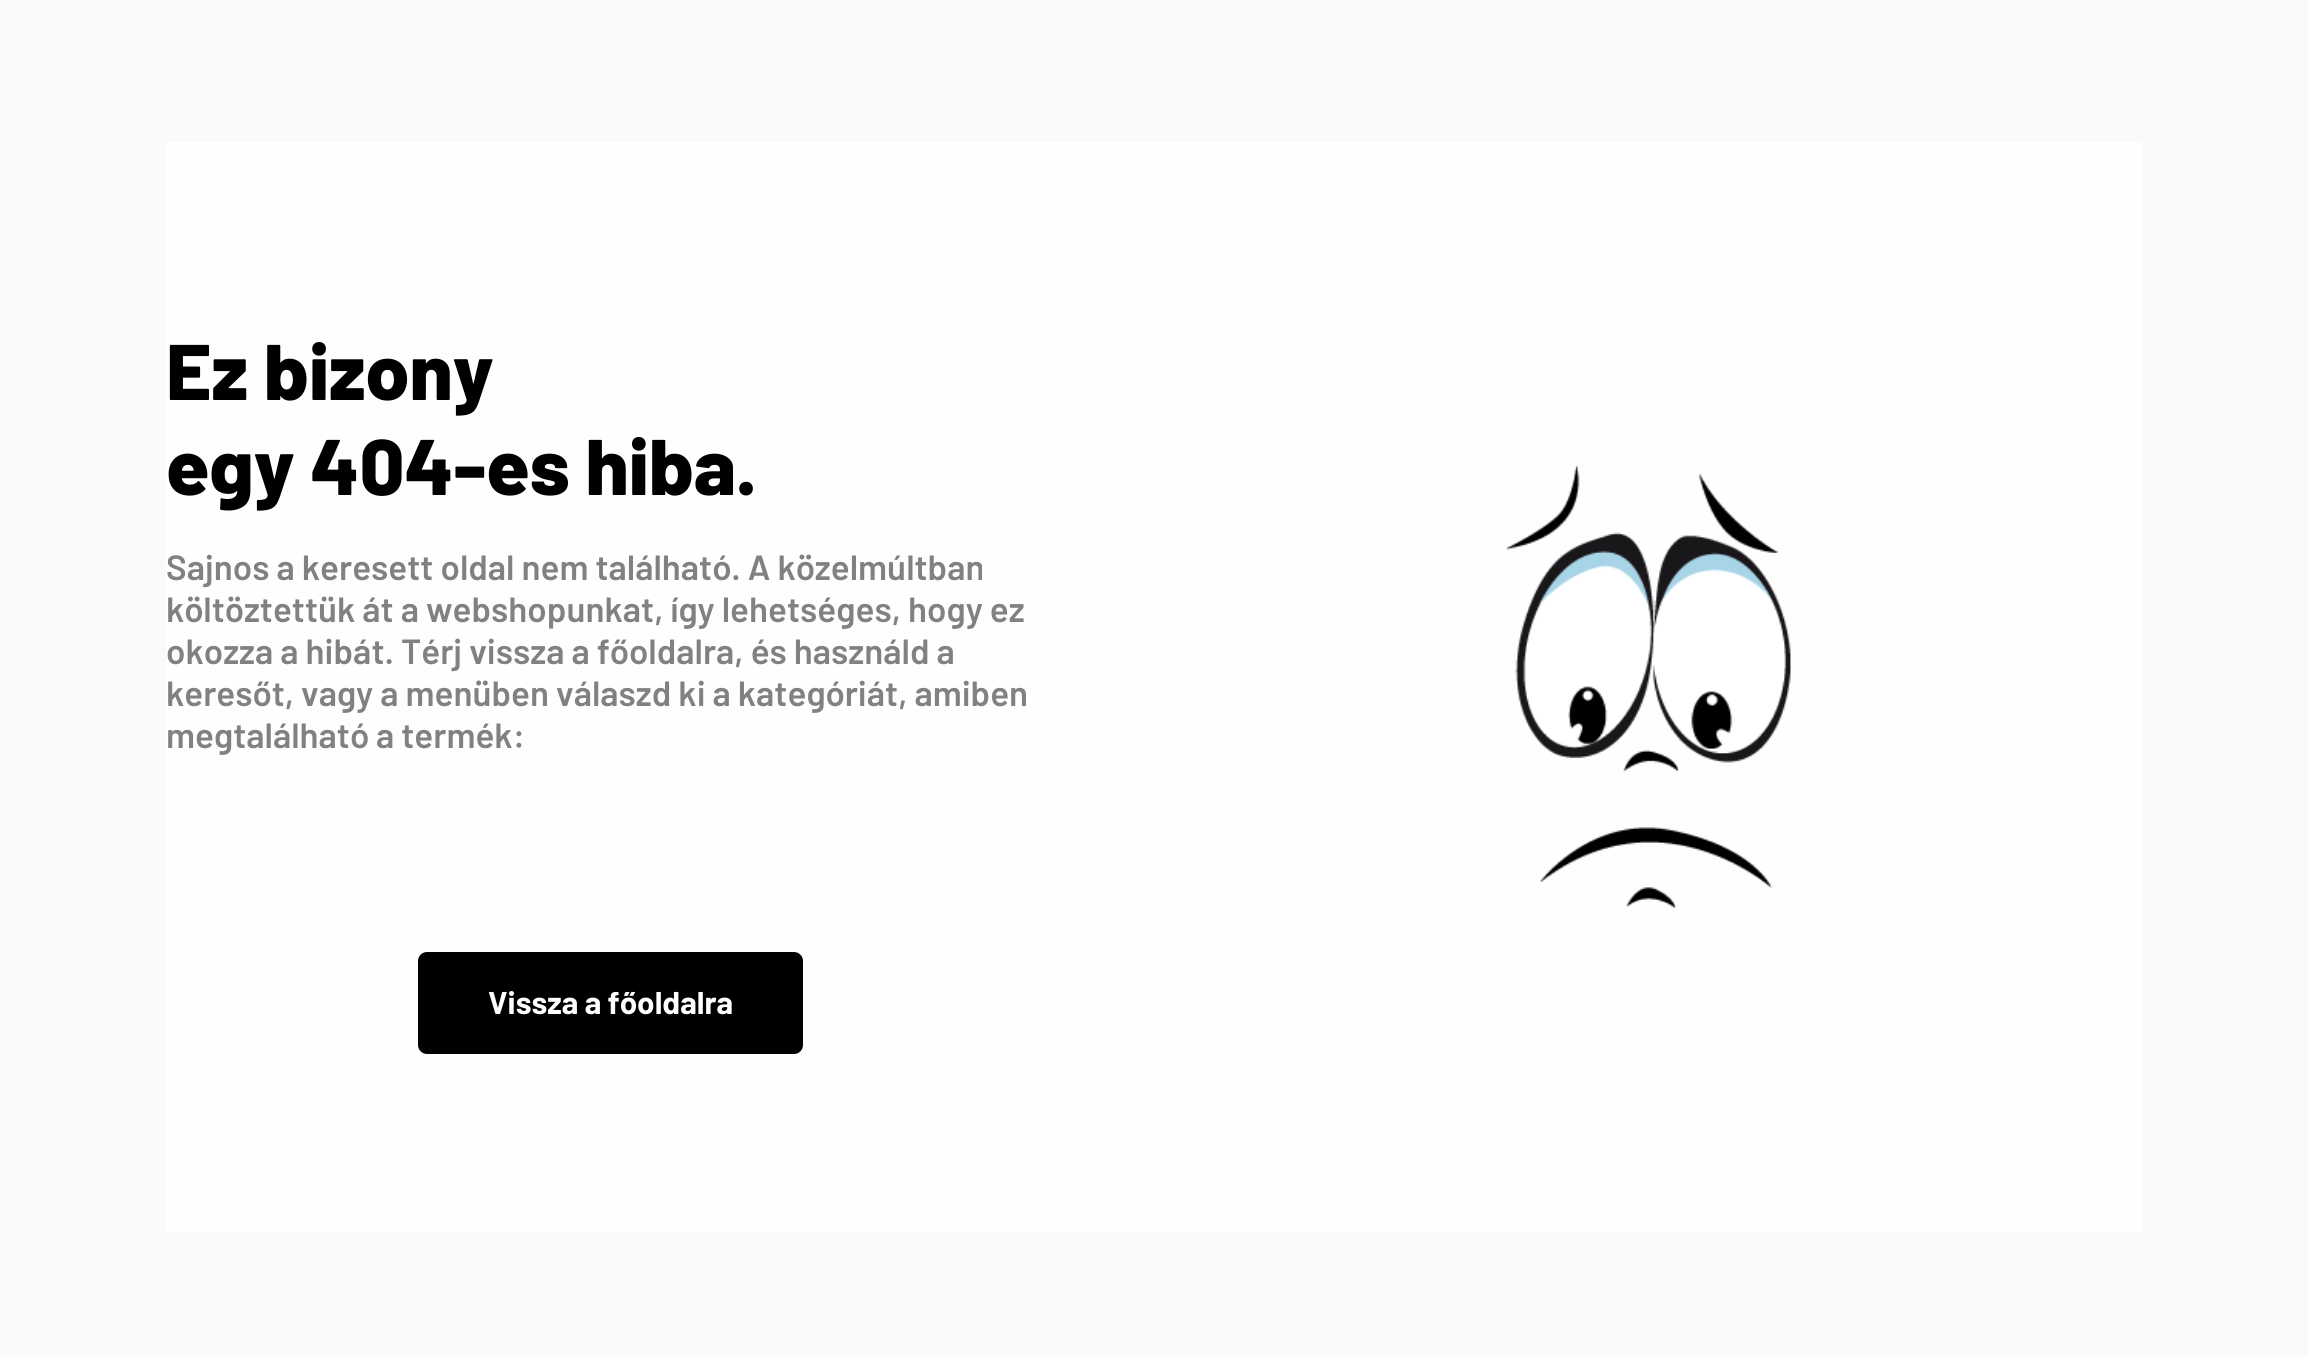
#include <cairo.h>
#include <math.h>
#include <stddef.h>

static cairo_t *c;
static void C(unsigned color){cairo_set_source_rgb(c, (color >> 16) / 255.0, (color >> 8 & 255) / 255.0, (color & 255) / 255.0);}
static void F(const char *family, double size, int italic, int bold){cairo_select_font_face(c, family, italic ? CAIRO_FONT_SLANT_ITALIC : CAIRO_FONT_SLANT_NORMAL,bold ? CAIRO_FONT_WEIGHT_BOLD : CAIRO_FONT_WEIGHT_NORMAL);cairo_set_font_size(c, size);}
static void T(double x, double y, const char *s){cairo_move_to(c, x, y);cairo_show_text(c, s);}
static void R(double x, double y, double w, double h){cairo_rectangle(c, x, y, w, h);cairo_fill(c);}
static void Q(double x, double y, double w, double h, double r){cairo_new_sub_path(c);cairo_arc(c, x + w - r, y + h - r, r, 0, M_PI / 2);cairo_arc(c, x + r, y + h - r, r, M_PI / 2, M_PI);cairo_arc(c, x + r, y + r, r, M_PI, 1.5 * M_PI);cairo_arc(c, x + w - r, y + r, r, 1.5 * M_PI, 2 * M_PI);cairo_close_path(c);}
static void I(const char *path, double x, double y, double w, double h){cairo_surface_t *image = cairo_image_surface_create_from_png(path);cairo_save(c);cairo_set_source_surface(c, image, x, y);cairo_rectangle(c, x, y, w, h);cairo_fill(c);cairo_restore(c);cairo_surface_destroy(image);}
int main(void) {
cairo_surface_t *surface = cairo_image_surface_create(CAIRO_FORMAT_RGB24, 2308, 1357);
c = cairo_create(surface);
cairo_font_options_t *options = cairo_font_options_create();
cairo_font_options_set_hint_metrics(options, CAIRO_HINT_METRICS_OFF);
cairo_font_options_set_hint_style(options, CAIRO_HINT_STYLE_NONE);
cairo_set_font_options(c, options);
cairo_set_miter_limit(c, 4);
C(0xf9fafa);
cairo_paint(c);
C(0xfefefe);
R(166,142,1976,1090);
F("Barlow ExtraBold",78.75,0,0);
C(0x000000);
T(166,400,"Ez bizony");
T(166,495,"egy 404-es hiba.");
F("Barlow SemiBold",35,0,0);
C(0x818181);
T(166,580,"Sajnos a keresett oldal nem található. A közelmúltban");
T(166,622,"költöztettük át a webshopunkat, így lehetséges, hogy ez");
T(166,664,"okozza a hibát. Térj vissza a főoldalra, és használd a");
T(166,706,"keresőt, vagy a menüben válaszd ki a kategóriát, amiben");
T(166,748,"megtalálható a termék:");
C(0x000000);
Q(418,952,385,102,9);
cairo_fill(c);
F("Barlow",31.5,0,1);
C(0xffffff);
T(488,1014,"Vissza a főoldalra");
I("1.png",1506,466,285,442);
cairo_surface_write_to_png(surface, "o.png");
cairo_font_options_destroy(options);
cairo_destroy(c);
cairo_surface_destroy(surface);
return 0;
}
